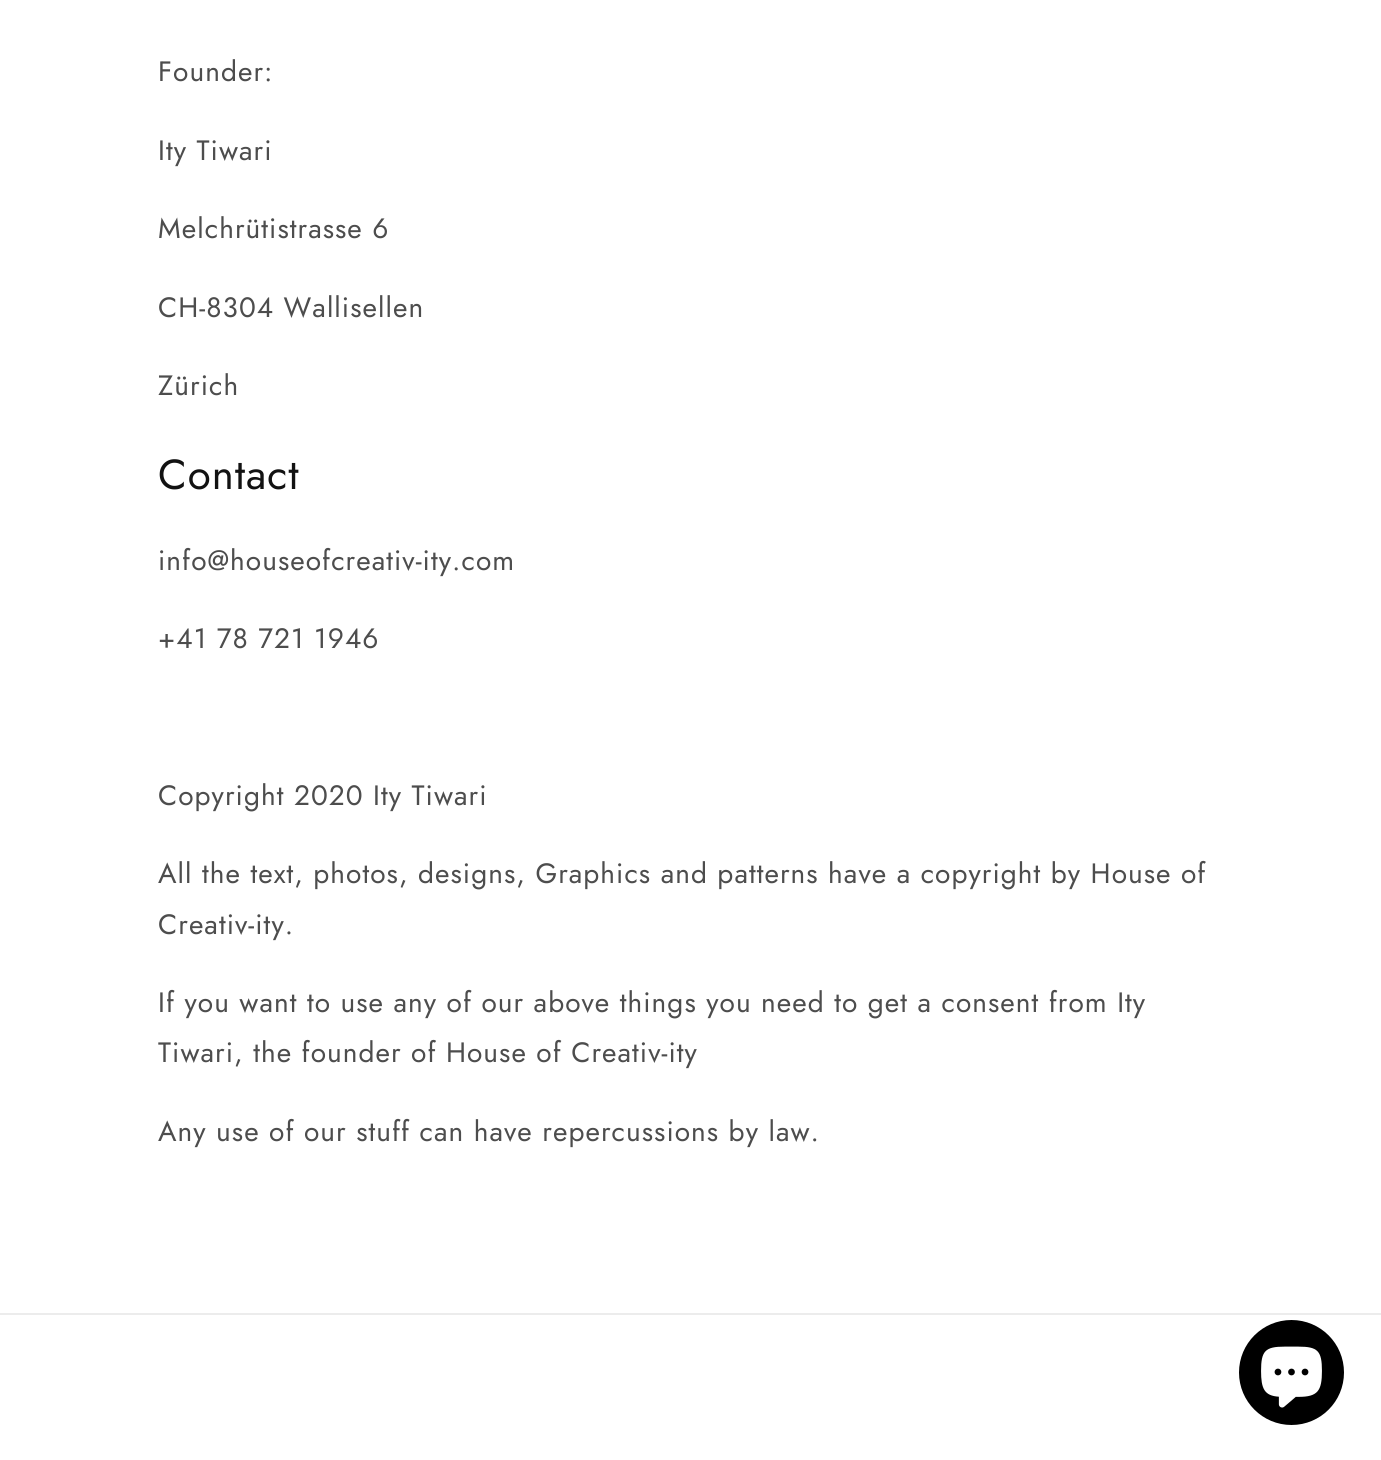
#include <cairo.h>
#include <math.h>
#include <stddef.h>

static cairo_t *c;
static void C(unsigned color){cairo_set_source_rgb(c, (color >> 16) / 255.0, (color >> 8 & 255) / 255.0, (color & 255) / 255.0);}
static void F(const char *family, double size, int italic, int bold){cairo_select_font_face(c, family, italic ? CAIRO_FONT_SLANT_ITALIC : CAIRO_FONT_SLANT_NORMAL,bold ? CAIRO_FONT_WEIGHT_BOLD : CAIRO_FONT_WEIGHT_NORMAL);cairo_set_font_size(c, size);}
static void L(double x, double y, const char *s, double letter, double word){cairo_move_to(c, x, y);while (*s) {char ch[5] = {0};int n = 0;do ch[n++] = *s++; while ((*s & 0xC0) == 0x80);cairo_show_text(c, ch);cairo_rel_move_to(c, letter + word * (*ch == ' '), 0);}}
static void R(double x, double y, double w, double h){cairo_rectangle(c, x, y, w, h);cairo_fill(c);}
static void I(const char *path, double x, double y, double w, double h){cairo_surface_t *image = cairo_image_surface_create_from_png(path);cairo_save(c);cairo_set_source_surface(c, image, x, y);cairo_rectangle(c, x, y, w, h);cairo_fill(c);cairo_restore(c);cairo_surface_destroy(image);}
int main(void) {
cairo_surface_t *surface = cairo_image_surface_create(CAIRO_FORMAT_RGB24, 1381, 1460);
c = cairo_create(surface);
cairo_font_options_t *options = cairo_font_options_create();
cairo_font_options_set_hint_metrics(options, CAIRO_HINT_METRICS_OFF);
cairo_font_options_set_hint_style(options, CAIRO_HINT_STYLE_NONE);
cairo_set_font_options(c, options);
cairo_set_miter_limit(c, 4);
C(0xffffff);
cairo_paint(c);
F("Jost",28,0,0);
C(0x4d4d4d);
L(158,81,"Founder:",1.05,0);
L(158,160,"Ity Tiwari",1.05,0);
L(158,238,"Melchrütistrasse 6",1.05,0);
L(158,317,"CH-8304 Wallisellen",1.05,0);
L(158,395,"Zürich",1.05,0);
F("Jost",42,0,0);
C(0x121212);
L(158,489,"Contact",1.05,0);
F("Jost",28,0,0);
C(0x4d4d4d);
L(158,570,"info@houseofcreativ-ity.com",1.05,0);
L(158,648,"+41 78 721 1946",1.05,0);
L(158,805,"Copyright 2020 Ity Tiwari",1.05,0);
L(158,883,"All the text, photos, designs, Graphics and patterns have a copyright by House of",1.05,0);
L(158,934,"Creativ-ity.",1.05,0);
L(158,1012,"If you want to use any of our above things you need to get a consent from Ity",1.05,0);
L(158,1062,"Tiwari, the founder of House of Creativ-ity",1.05,0);
L(158,1141,"Any use of our stuff can have repercussions by law.",1.05,0);
C(0xececec);
R(0,1313,1381,2);
C(0x000000);
cairo_new_path(c);
cairo_arc(c,1291.5,1372.5,52.5,0,2 * M_PI);
cairo_fill(c);
I("1.png",1261,1346,61,62);
cairo_surface_write_to_png(surface, "o.png");
cairo_font_options_destroy(options);
cairo_destroy(c);
cairo_surface_destroy(surface);
return 0;
}
